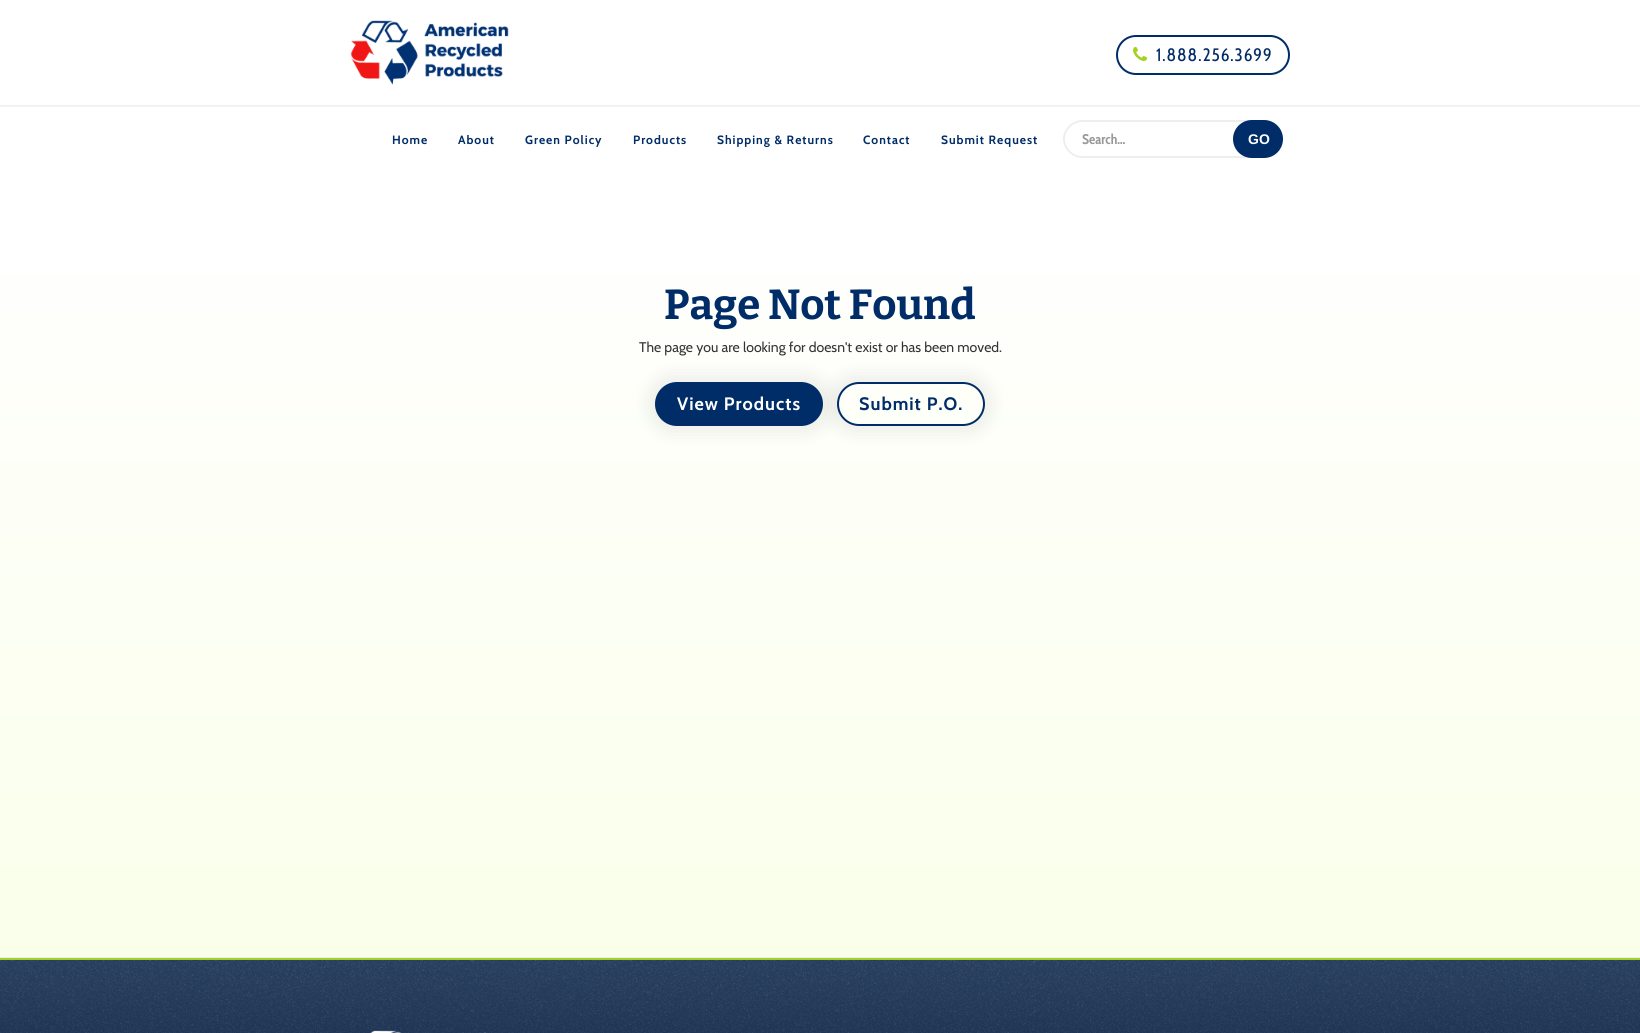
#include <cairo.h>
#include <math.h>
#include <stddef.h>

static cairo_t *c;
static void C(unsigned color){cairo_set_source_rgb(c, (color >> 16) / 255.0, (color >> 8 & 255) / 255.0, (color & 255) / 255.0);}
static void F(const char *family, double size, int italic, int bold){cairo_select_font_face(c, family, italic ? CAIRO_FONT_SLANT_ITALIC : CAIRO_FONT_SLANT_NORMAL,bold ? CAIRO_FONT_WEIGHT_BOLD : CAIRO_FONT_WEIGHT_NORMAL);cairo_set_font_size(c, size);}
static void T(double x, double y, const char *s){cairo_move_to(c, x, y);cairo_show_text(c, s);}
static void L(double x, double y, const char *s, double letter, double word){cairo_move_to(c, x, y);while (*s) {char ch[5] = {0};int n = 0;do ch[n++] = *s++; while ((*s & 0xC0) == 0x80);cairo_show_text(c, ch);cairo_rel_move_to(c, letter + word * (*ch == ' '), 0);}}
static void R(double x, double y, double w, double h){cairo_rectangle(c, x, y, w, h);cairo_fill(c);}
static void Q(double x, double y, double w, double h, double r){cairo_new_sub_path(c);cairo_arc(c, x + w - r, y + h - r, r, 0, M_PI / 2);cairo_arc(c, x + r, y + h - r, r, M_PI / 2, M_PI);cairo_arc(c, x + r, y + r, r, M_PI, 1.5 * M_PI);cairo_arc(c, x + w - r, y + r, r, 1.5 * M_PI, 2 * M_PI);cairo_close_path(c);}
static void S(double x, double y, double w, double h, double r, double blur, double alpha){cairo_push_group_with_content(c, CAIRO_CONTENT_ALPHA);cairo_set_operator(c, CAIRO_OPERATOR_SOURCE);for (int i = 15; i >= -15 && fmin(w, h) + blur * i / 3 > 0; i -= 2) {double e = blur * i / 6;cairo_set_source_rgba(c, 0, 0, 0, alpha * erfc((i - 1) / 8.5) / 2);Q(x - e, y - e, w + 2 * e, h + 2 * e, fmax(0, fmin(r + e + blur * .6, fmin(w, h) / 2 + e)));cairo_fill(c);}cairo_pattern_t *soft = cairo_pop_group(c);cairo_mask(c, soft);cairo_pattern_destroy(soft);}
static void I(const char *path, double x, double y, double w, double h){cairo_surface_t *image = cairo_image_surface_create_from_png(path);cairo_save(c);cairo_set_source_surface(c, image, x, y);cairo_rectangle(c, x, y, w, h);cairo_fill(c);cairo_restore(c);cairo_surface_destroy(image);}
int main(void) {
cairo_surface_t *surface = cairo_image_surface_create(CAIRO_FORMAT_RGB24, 1640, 1033);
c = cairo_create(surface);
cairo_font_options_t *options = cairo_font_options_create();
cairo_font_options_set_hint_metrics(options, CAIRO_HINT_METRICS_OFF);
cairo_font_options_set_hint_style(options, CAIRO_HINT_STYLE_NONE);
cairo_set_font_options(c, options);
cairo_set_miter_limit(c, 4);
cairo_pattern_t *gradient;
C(0xffffff);
cairo_paint(c);
cairo_save(c);
cairo_rectangle(c,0,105,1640,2);
cairo_clip(c);
C(0x000000);
S(0,1,1640,105,0,1.5,.1);
cairo_restore(c);
I("1.png",350,20,159,65);
Q(1117,36,172,38,19);
C(0x002c68);
cairo_stroke(c);
I("2.png",1133,46,15,15);
F("Cabin Condensed",18,0,0);
L(1156,61,"1.888.256.3699",1,0);
F("Cabin",12,0,1);
L(392,144,"Home",1,0);
L(458,144,"About",1,0);
L(525,144,"Green Policy",1,0);
L(633,144,"Products",1,0);
L(717,144,"Shipping & Returns",1,0);
L(863,144,"Contact",1,0);
L(941,144,"Submit Request",1,0);
C(0xeeeeee);
cairo_set_fill_rule(c,CAIRO_FILL_RULE_EVEN_ODD);
cairo_new_path(c);
cairo_move_to(c,1082,120);
cairo_line_to(c,1263,120);
cairo_line_to(c,1263,158);
cairo_line_to(c,1082,158);
cairo_curve_to(c,1072,158,1063,149,1063,139);
cairo_curve_to(c,1063,129,1072,120,1082,120);
cairo_close_path(c);
cairo_move_to(c,1082,122);
cairo_line_to(c,1263,122);
cairo_line_to(c,1263,156);
cairo_line_to(c,1082,156);
cairo_curve_to(c,1073,156,1065,148,1065,139);
cairo_curve_to(c,1065,130,1073,122,1082,122);
cairo_close_path(c);
cairo_fill(c);
F("Cabin Condensed",14,0,1);
C(0x999999);
T(1082,144,"Search…");
C(0x002c68);
Q(1233,120,50,38,19);
cairo_fill(c);
F("Liberation Sans",14,0,1);
C(0xffffff);
T(1248,144,"GO");
gradient = cairo_pattern_create_linear(820,183,820,957);
cairo_pattern_add_color_stop_rgba(gradient,0,1,1,1,1);
cairo_pattern_add_color_stop_rgba(gradient,1,0.98,1,0.918,1);
cairo_set_source(c,gradient);
cairo_pattern_destroy(gradient);
R(0,275,1640,682);
C(0xeeeeee);
R(0,957,1640,1);
F("Bitter",42,0,1);
C(0x002c68);
T(664,319,"Page Not Found");
F("Cabin",14,0,0);
C(0x333333);
T(639,352,"The page you are looking for doesn't exist or has been moved.");
C(0x000000);
S(650,377,178,54,27,10,.08);
C(0x002c68);
Q(656,383,166,42,21);
cairo_fill_preserve(c);
cairo_stroke(c);
F("Cabin",18,0,1);
C(0xffffff);
L(677,410,"View Products",1,0);
cairo_save(c);
cairo_new_path(c);
cairo_move_to(c,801,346);
cairo_line_to(c,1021,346);
cairo_line_to(c,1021,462);
cairo_line_to(c,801,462);
cairo_close_path(c);
cairo_move_to(c,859,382);
cairo_line_to(c,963,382);
cairo_curve_to(c,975,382,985,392,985,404);
cairo_curve_to(c,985,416,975,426,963,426);
cairo_line_to(c,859,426);
cairo_curve_to(c,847,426,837,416,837,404);
cairo_curve_to(c,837,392,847,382,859,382);
cairo_close_path(c);
cairo_clip(c);
C(0x000000);
S(832,377,158,54,27,10,.08);
cairo_restore(c);
Q(838,383,146,42,21);
C(0x002c68);
cairo_stroke(c);
L(859,410,"Submit P.O.",1,0);
I("3.png",0,960,1640,73);
C(0xa3d220);
R(0,958,1640,2);
I("4.png",370,1030,116,3);
cairo_surface_write_to_png(surface, "o.png");
cairo_font_options_destroy(options);
cairo_destroy(c);
cairo_surface_destroy(surface);
return 0;
}
